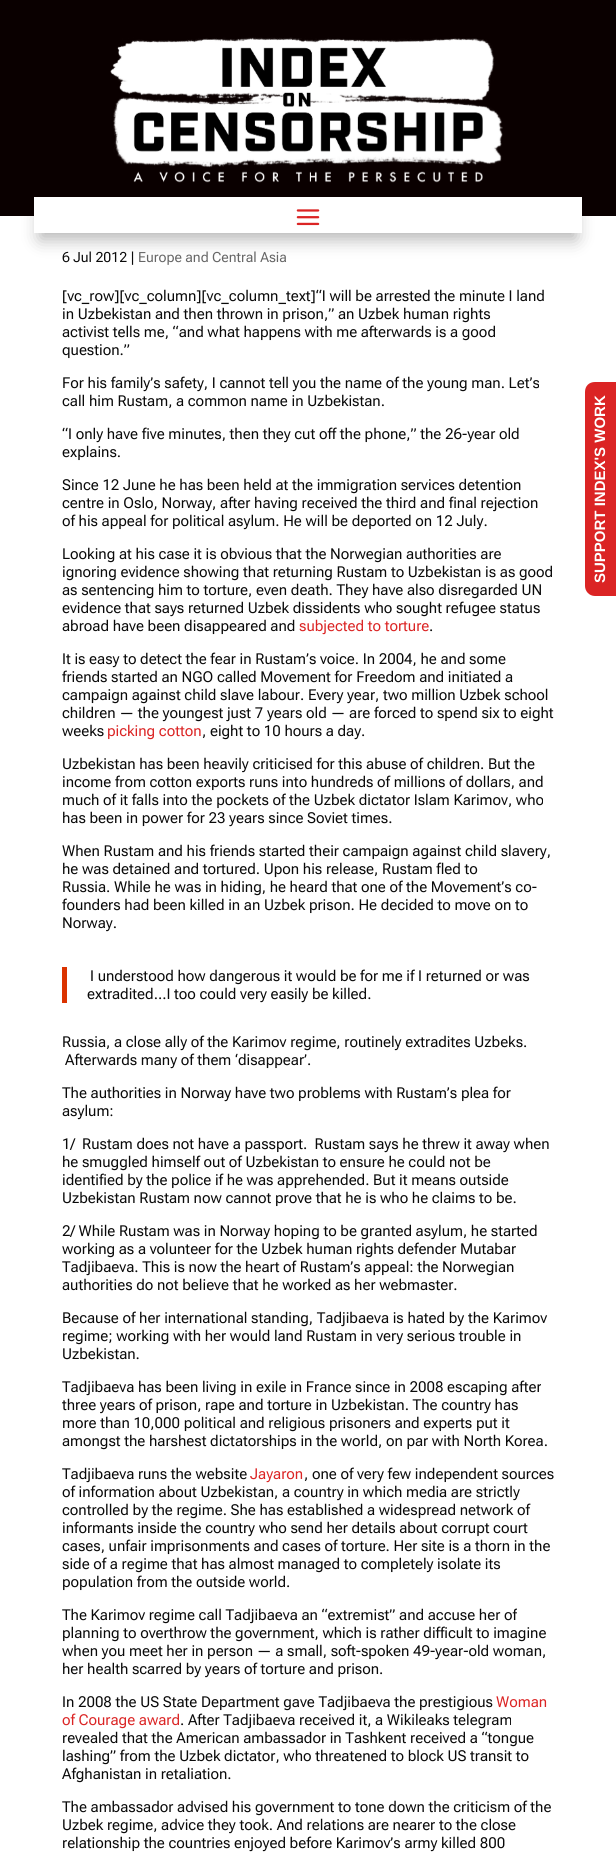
#include <cairo.h>
#include <math.h>
#include <stddef.h>

static cairo_t *c;
static void C(unsigned color){cairo_set_source_rgb(c, (color >> 16) / 255.0, (color >> 8 & 255) / 255.0, (color & 255) / 255.0);}
static void F(const char *family, double size, int italic, int bold){cairo_select_font_face(c, family, italic ? CAIRO_FONT_SLANT_ITALIC : CAIRO_FONT_SLANT_NORMAL,bold ? CAIRO_FONT_WEIGHT_BOLD : CAIRO_FONT_WEIGHT_NORMAL);cairo_set_font_size(c, size);}
static void T(double x, double y, const char *s){cairo_move_to(c, x, y);cairo_show_text(c, s);}
static void R(double x, double y, double w, double h){cairo_rectangle(c, x, y, w, h);cairo_fill(c);}
static void Q(double x, double y, double w, double h, double r){cairo_new_sub_path(c);cairo_arc(c, x + w - r, y + h - r, r, 0, M_PI / 2);cairo_arc(c, x + r, y + h - r, r, M_PI / 2, M_PI);cairo_arc(c, x + r, y + r, r, M_PI, 1.5 * M_PI);cairo_arc(c, x + w - r, y + r, r, 1.5 * M_PI, 2 * M_PI);cairo_close_path(c);}
static void S(double x, double y, double w, double h, double r, double blur, double alpha){cairo_push_group_with_content(c, CAIRO_CONTENT_ALPHA);cairo_set_operator(c, CAIRO_OPERATOR_SOURCE);for (int i = 15; i >= -15 && fmin(w, h) + blur * i / 3 > 0; i -= 2) {double e = blur * i / 6;cairo_set_source_rgba(c, 0, 0, 0, alpha * erfc((i - 1) / 8.5) / 2);Q(x - e, y - e, w + 2 * e, h + 2 * e, fmax(0, fmin(r + e + blur * .6, fmin(w, h) / 2 + e)));cairo_fill(c);}cairo_pattern_t *soft = cairo_pop_group(c);cairo_mask(c, soft);cairo_pattern_destroy(soft);}
static void I(const char *path, double x, double y, double w, double h){cairo_surface_t *image = cairo_image_surface_create_from_png(path);cairo_save(c);cairo_set_source_surface(c, image, x, y);cairo_rectangle(c, x, y, w, h);cairo_fill(c);cairo_restore(c);cairo_surface_destroy(image);}
int main(void) {
cairo_surface_t *surface = cairo_image_surface_create(CAIRO_FORMAT_RGB24, 616, 1857);
c = cairo_create(surface);
cairo_font_options_t *options = cairo_font_options_create();
cairo_font_options_set_hint_metrics(options, CAIRO_HINT_METRICS_OFF);
cairo_font_options_set_hint_style(options, CAIRO_HINT_STYLE_NONE);
cairo_set_font_options(c, options);
cairo_set_miter_limit(c, 4);
C(0xffffff);
cairo_paint(c);
C(0x0a0000);
R(0,0,616,216);
I("1.png",110,37,393,146);
C(0x000000);
S(40,215,536,24,0,9,.3);
C(0xffffff);
R(34,197,548,36);
I("2.png",296,209,24,17);
F("Roboto Flex",14,0,0);
C(0x0a0a0a);
T(62,262,"6 Jul 2012 |");
C(0x666666);
T(138,262,"Europe and Central Asia");
F("Roboto Flex",15,0,0);
C(0x0a0a0a);
T(62,301,"[vc_row][vc_column][vc_column_text]“I will be arrested the minute I land");
T(62,319,"in Uzbekistan and then thrown in prison,” an Uzbek human rights");
T(62,337,"activist tells me, “and what happens with me afterwards is a good");
T(62,355,"question.”");
T(62,388,"For his family’s safety, I cannot tell you the name of the young man. Let’s");
T(62,406,"call him Rustam, a common name in Uzbekistan.");
T(62,439,"“I only have five minutes, then they cut off the phone,” the 26-year old");
T(62,457,"explains.");
T(62,490,"Since 12 June he has been held at the immigration services detention");
T(62,508,"centre in Oslo, Norway, after having received the third and final rejection");
T(62,526,"of his appeal for political asylum. He will be deported on 12 July.");
T(62,559,"Looking at his case it is obvious that the Norwegian authorities are");
T(62,577,"ignoring evidence showing that returning Rustam to Uzbekistan is as good");
T(62,595,"as sentencing him to torture, even death. They have also disregarded UN");
T(62,613,"evidence that says returned Uzbek dissidents who sought refugee status");
T(62,631,"abroad have been disappeared and");
C(0xdb2424);
T(299,631,"subjected to torture");
C(0x0a0a0a);
T(429,631,".");
T(62,664,"It is easy to detect the fear in Rustam’s voice. In 2004, he and some");
T(62,682,"friends started an NGO called Movement for Freedom and initiated a");
T(62,700,"campaign against child slave labour. Every year, two million Uzbek school");
T(62,718,"children — the youngest just 7 years old — are forced to spend six to eight");
T(62,736,"weeks");
C(0xdb2424);
T(107,736,"picking cotton");
C(0x0a0a0a);
T(202,736,", eight to 10 hours a day.");
T(62,769,"Uzbekistan has been heavily criticised for this abuse of children. But the");
T(62,787,"income from cotton exports runs into hundreds of millions of dollars, and");
T(62,805,"much of it falls into the pockets of the Uzbek dictator Islam Karimov, who");
T(62,823,"has been in power for 23 years since Soviet times.");
T(62,856,"When Rustam and his friends started their campaign against child slavery,");
T(62,874,"he was detained and tortured. Upon his release, Rustam fled to");
T(62,892,"Russia. While he was in hiding, he heard that one of the Movement’s co-");
T(62,910,"founders had been killed in an Uzbek prison. He decided to move on to");
T(62,928,"Norway.");
C(0xdb3300);
R(62,967,5,36);
C(0x0a0a0a);
T(90,981,"I understood how dangerous it would be for me if I returned or was");
T(87,999,"extradited…I too could very easily be killed.");
T(62,1047,"Russia, a close ally of the Karimov regime, routinely extradites Uzbeks.");
T(65,1065,"Afterwards many of them ‘disappear’.");
T(62,1098,"The authorities in Norway have two problems with Rustam’s plea for");
T(62,1116,"asylum:");
T(62,1149,"1/  Rustam does not have a passport.  Rustam says he threw it away when");
T(62,1167,"he smuggled himself out of Uzbekistan to ensure he could not be");
T(62,1185,"identified by the police if he was apprehended. But it means outside");
T(62,1203,"Uzbekistan Rustam now cannot prove that he is who he claims to be.");
T(62,1236,"2/ While Rustam was in Norway hoping to be granted asylum, he started");
T(62,1254,"working as a volunteer for the Uzbek human rights defender Mutabar");
T(62,1272,"Tadjibaeva. This is now the heart of Rustam’s appeal: the Norwegian");
T(62,1290,"authorities do not believe that he worked as her webmaster.");
T(62,1323,"Because of her international standing, Tadjibaeva is hated by the Karimov");
T(62,1341,"regime; working with her would land Rustam in very serious trouble in");
T(62,1359,"Uzbekistan.");
T(62,1392,"Tadjibaeva has been living in exile in France since in 2008 escaping after");
T(62,1410,"three years of prison, rape and torture in Uzbekistan. The country has");
T(62,1428,"more than 10,000 political and religious prisoners and experts put it");
T(62,1446,"amongst the harshest dictatorships in the world, on par with North Korea.");
T(62,1479,"Tadjibaeva runs the website");
C(0xdb2424);
T(250,1479,"Jayaron");
C(0x0a0a0a);
T(304,1479,", one of very few independent sources");
T(62,1497,"of information about Uzbekistan, a country in which media are strictly");
T(62,1515,"controlled by the regime. She has established a widespread network of");
T(62,1533,"informants inside the country who send her details about corrupt court");
T(62,1551,"cases, unfair imprisonments and cases of torture. Her site is a thorn in the");
T(62,1569,"side of a regime that has almost managed to completely isolate its");
T(62,1587,"population from the outside world.");
T(62,1620,"The Karimov regime call Tadjibaeva an “extremist” and accuse her of");
T(62,1638,"planning to overthrow the government, which is rather difficult to imagine");
T(62,1656,"when you meet her in person — a small, soft-spoken 49-year-old woman,");
T(62,1674,"her health scarred by years of torture and prison.");
T(62,1707,"In 2008 the US State Department gave Tadjibaeva the prestigious");
C(0xdb2424);
T(496,1707,"Woman");
T(62,1725,"of Courage award");
C(0x0a0a0a);
T(180,1725,". After Tadjibaeva received it, a Wikileaks telegram");
T(62,1743,"revealed that the American ambassador in Tashkent received a “tongue");
T(62,1761,"lashing” from the Uzbek dictator, who threatened to block US transit to");
T(62,1779,"Afghanistan in retaliation.");
T(62,1812,"The ambassador advised his government to tone down the criticism of the");
T(62,1830,"Uzbek regime, advice they took. And relations are nearer to the close");
T(62,1848,"relationship the countries enjoyed before Karimov’s army killed 800");
C(0xdb2424);
cairo_new_path(c);
cairo_move_to(c,585,586);
cairo_line_to(c,585,392);
cairo_curve_to(c,585,386,589,382,595,382);
cairo_line_to(c,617,382);
cairo_line_to(c,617,596);
cairo_line_to(c,595,596);
cairo_curve_to(c,589,596,585,591,585,586);
cairo_close_path(c);
cairo_fill(c);
F("Liberation Sans",15,0,1);
C(0xffffff);
cairo_save(c);
cairo_translate(c,605,583);
cairo_rotate(c,-90 * M_PI / 180);
T(0,0,"SUPPORT INDEX'S WORK");
cairo_restore(c);
cairo_surface_write_to_png(surface, "o.png");
cairo_font_options_destroy(options);
cairo_destroy(c);
cairo_surface_destroy(surface);
return 0;
}
